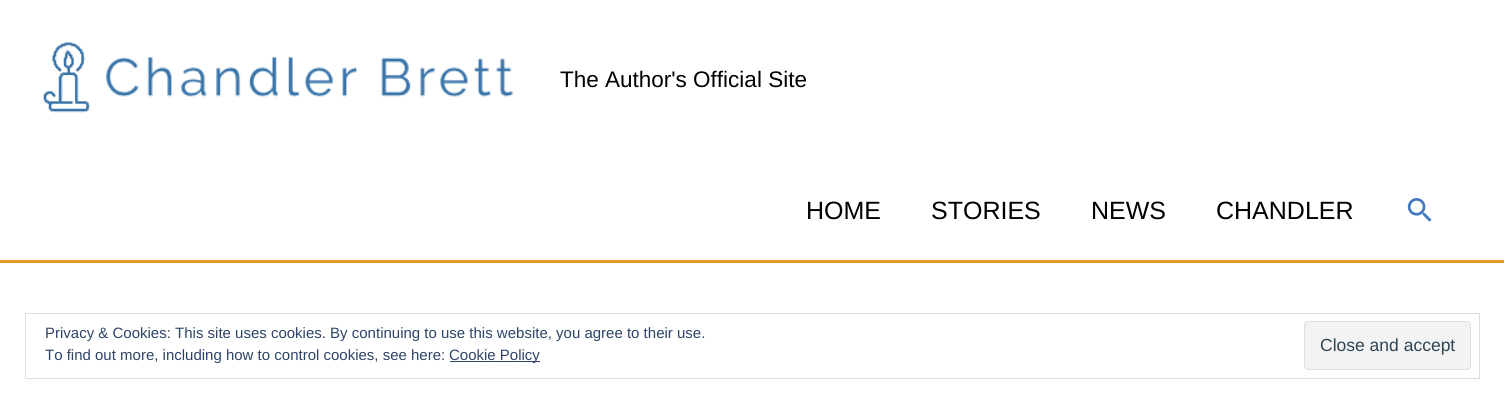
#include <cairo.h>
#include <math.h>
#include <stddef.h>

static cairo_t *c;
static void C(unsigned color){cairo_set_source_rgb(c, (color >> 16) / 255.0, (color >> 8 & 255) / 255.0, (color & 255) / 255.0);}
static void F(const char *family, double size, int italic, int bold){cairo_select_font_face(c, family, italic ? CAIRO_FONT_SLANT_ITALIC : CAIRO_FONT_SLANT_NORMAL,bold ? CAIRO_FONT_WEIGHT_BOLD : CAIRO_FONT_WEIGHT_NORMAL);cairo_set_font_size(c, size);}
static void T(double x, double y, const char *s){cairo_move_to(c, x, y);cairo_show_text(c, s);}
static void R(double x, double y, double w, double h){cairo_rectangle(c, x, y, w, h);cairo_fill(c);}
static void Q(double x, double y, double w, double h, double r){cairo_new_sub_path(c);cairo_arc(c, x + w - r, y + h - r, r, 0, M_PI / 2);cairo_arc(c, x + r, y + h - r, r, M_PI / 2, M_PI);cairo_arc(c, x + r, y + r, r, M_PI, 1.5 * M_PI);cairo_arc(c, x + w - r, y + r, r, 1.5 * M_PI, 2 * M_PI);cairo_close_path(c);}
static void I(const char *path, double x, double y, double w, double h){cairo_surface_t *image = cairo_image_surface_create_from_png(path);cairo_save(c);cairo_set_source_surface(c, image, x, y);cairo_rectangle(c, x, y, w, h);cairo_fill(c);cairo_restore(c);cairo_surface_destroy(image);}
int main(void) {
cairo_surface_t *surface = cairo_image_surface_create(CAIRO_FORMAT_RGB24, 1504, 403);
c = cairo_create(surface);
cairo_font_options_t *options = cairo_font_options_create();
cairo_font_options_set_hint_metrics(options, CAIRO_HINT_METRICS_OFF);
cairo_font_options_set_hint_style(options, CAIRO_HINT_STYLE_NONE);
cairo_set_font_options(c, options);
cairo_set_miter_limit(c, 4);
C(0xffffff);
cairo_paint(c);
C(0xe79b25);
R(0,260,1504,3);
I("1.png",43,42,470,71);
F("Liberation Sans",22.5,0,0);
C(0x000000);
T(560,87,"The Author's Official Site");
F("Liberation Sans",25,0,0);
T(806,219,"HOME");
T(931,219,"STORIES");
T(1091,219,"NEWS");
T(1216,219,"CHANDLER");
I("2.png",1407,198,25,24);
cairo_rectangle(c,25.5,313.5,1454,65);
C(0xdedede);
cairo_set_line_width(c,1);
cairo_stroke(c);
F("Liberation Sans",15,0,0);
C(0x2e4467);
T(45,338,"Privacy & Cookies: This site uses cookies. By continuing to use this website, you agree to their use.");
C(0xf3f3f3);
Q(1304.5,321.5,166,48,3.5);
cairo_fill_preserve(c);
C(0xdedede);
cairo_stroke(c);
F("Liberation Sans",17.5,0,0);
C(0x2e4453);
T(1320,351,"Close and accept");
F("Liberation Sans",15,0,0);
C(0x2e4467);
T(45,360,"To find out more, including how to control cookies, see here:");
R(450,361,90,1);
T(449,360,"Cookie Policy");
cairo_surface_write_to_png(surface, "o.png");
cairo_font_options_destroy(options);
cairo_destroy(c);
cairo_surface_destroy(surface);
return 0;
}
